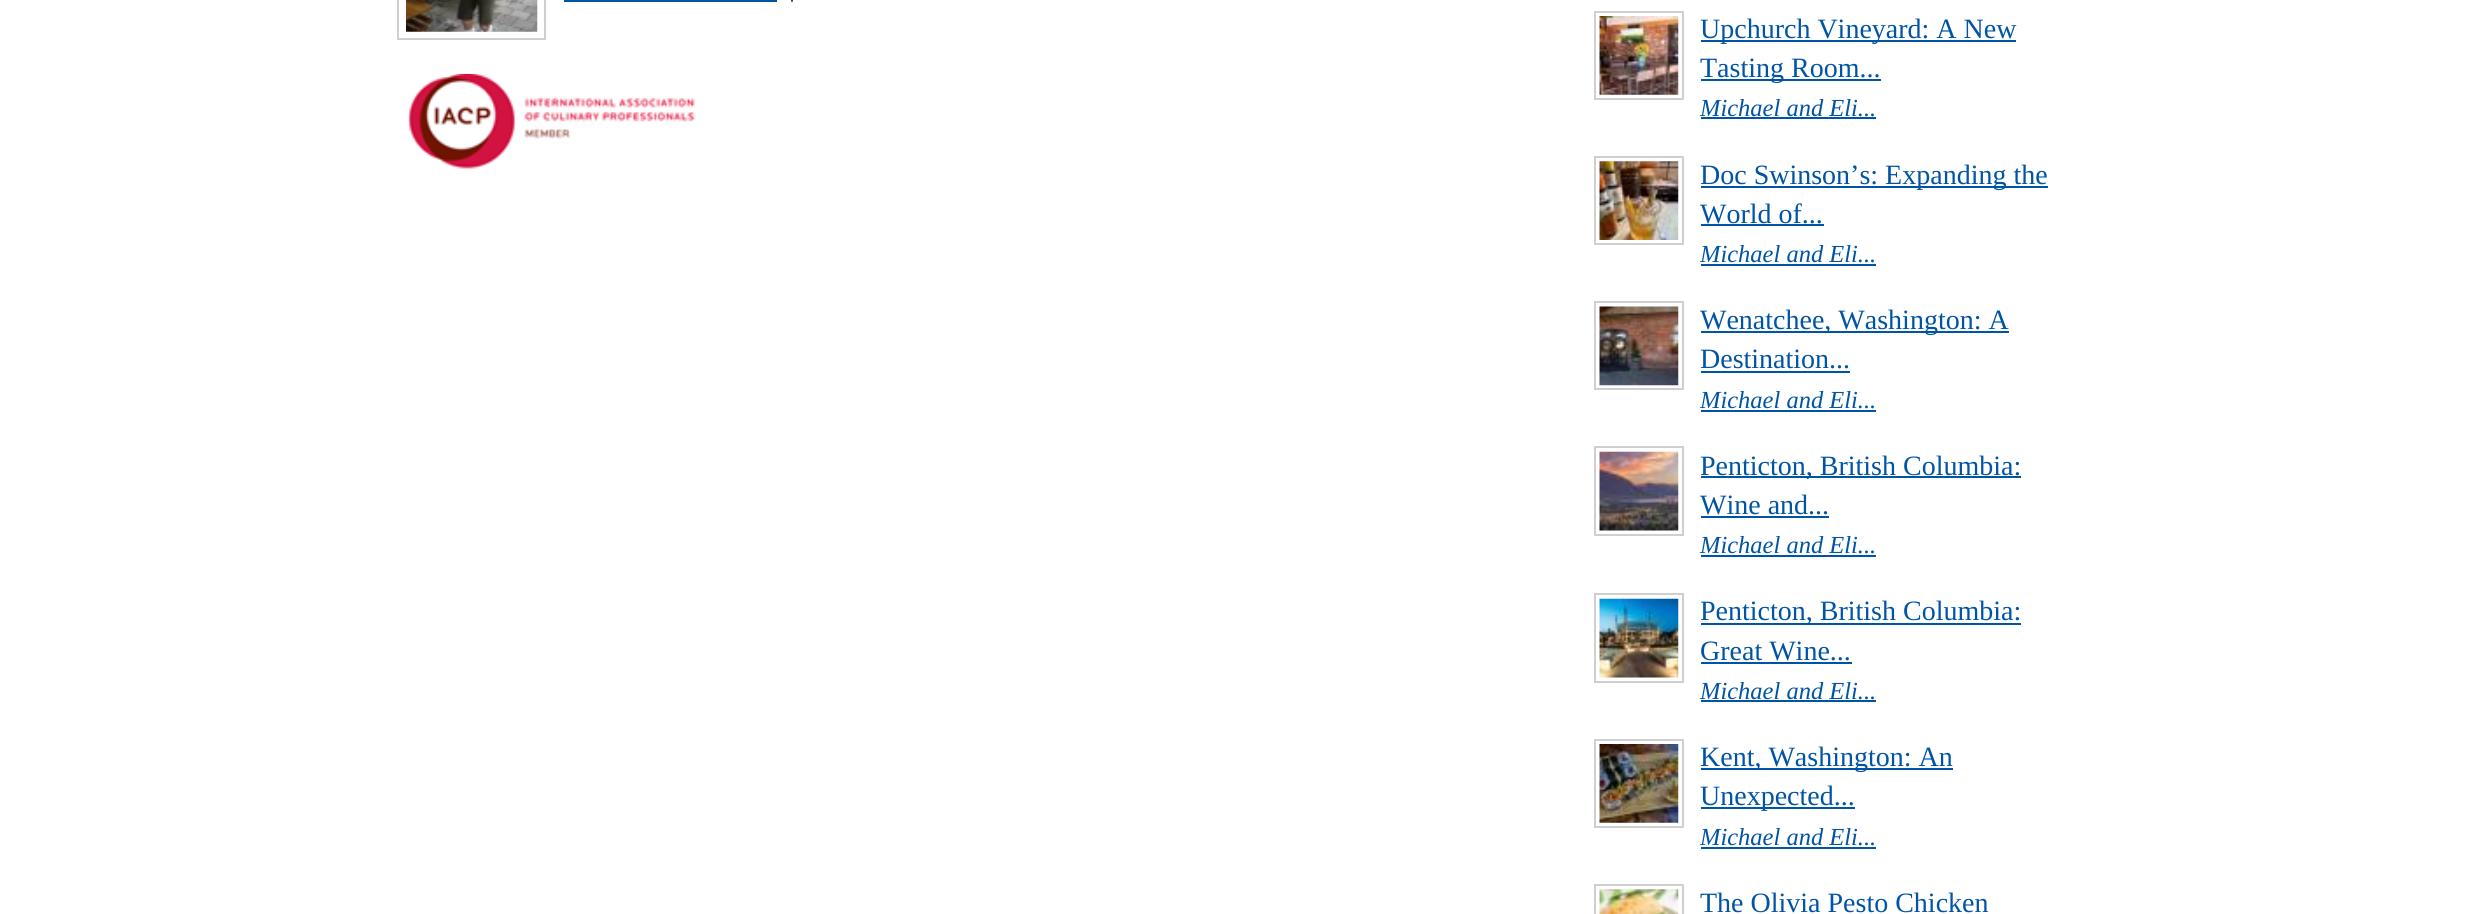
#include <cairo.h>
#include <math.h>
#include <stddef.h>

static cairo_t *c;
static void C(unsigned color){cairo_set_source_rgb(c, (color >> 16) / 255.0, (color >> 8 & 255) / 255.0, (color & 255) / 255.0);}
static void F(const char *family, double size, int italic, int bold){cairo_select_font_face(c, family, italic ? CAIRO_FONT_SLANT_ITALIC : CAIRO_FONT_SLANT_NORMAL,bold ? CAIRO_FONT_WEIGHT_BOLD : CAIRO_FONT_WEIGHT_NORMAL);cairo_set_font_size(c, size);}
static void T(double x, double y, const char *s){cairo_move_to(c, x, y);cairo_show_text(c, s);}
static void R(double x, double y, double w, double h){cairo_rectangle(c, x, y, w, h);cairo_fill(c);}
static void I(const char *path, double x, double y, double w, double h){cairo_surface_t *image = cairo_image_surface_create_from_png(path);cairo_save(c);cairo_set_source_surface(c, image, x, y);cairo_rectangle(c, x, y, w, h);cairo_fill(c);cairo_restore(c);cairo_surface_destroy(image);}
int main(void) {
cairo_surface_t *surface = cairo_image_surface_create(CAIRO_FORMAT_RGB24, 2479, 914);
c = cairo_create(surface);
cairo_font_options_t *options = cairo_font_options_create();
cairo_font_options_set_hint_metrics(options, CAIRO_HINT_METRICS_OFF);
cairo_font_options_set_hint_style(options, CAIRO_HINT_STYLE_NONE);
cairo_set_font_options(c, options);
cairo_set_miter_limit(c, 4);
C(0xffffff);
cairo_paint(c);
I("1.png",404,0,2,13);
I("2.png",407,73,289,96);
cairo_new_path(c);
cairo_move_to(c,792,-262.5);
cairo_line_to(c,792,2);
C(0x333132);
cairo_set_line_width(c,1.8);
cairo_set_dash(c,(double[]){1.75,1.75},2,0);
cairo_stroke(c);
cairo_rectangle(c,398,-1,147,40);
C(0xcfcfcf);
cairo_set_line_width(c,2);
cairo_set_dash(c,NULL,0,0);
cairo_stroke(c);
I("3.png",406,0,132,32);
C(0x0054a6);
R(564,0,213,2);
cairo_rectangle(c,1595,12,88,87);
C(0xcfcfcf);
cairo_stroke(c);
I("4.png",1599,16,80,79);
C(0x0054a6);
R(1701,40,315,2);
F("Liberation Serif",28,0,0);
T(1700,38,"Upchurch Vineyard: A New");
R(1701,79,180,2);
T(1700,77,"Tasting Room...");
F("Liberation Serif",24.5,1,0);
T(1700,116,"Michael and Eli...");
R(1701,117,175,2);
cairo_rectangle(c,1595,157,88,87);
C(0xcfcfcf);
cairo_stroke(c);
I("5.png",1599,161,80,79);
C(0x0054a6);
R(1701,186,347,2);
F("Liberation Serif",28,0,0);
T(1700,184,"Doc Swinson’s: Expanding the");
T(1700,223,"World of...");
R(1701,224,123,2);
F("Liberation Serif",24.5,1,0);
T(1700,262,"Michael and Eli...");
R(1701,264,175,2);
cairo_rectangle(c,1595,302,88,87);
C(0xcfcfcf);
cairo_stroke(c);
I("6.png",1599,306,80,80);
C(0x0054a6);
R(1701,331,308,2);
F("Liberation Serif",28,0,0);
T(1700,329,"Wenatchee, Washington: A");
T(1700,368,"Destination...");
R(1701,371,149,2);
F("Liberation Serif",24.5,1,0);
T(1700,408,"Michael and Eli...");
R(1701,410,175,2);
cairo_rectangle(c,1595,447,88,88);
C(0xcfcfcf);
cairo_stroke(c);
I("7.png",1599,451,80,80);
C(0x0054a6);
R(1701,476,320,2);
F("Liberation Serif",28,0,0);
T(1700,475,"Penticton, British Columbia:");
T(1700,514,"Wine and...");
R(1701,516,128,2);
F("Liberation Serif",24.5,1,0);
T(1700,553,"Michael and Eli...");
R(1701,555,175,2);
cairo_rectangle(c,1595,594,88,88);
C(0xcfcfcf);
cairo_stroke(c);
I("8.png",1599,598,80,80);
C(0x0054a6);
R(1701,623,320,2);
F("Liberation Serif",28,0,0);
T(1700,620,"Penticton, British Columbia:");
T(1700,660,"Great Wine...");
R(1701,662,151,2);
F("Liberation Serif",24.5,1,0);
T(1700,699,"Michael and Eli...");
R(1701,700,175,2);
cairo_rectangle(c,1595,740,88,87);
C(0xcfcfcf);
cairo_stroke(c);
I("9.png",1599,744,80,79);
C(0x0054a6);
R(1701,768,252,2);
F("Liberation Serif",28,0,0);
T(1700,766,"Kent, Washington: An");
R(1701,807,154,2);
T(1700,805,"Unexpected...");
F("Liberation Serif",24.5,1,0);
T(1700,845,"Michael and Eli...");
R(1701,847,175,2);
cairo_rectangle(c,1595,885,88,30);
C(0xcfcfcf);
cairo_stroke(c);
I("10.png",1599,889,80,25);
F("Liberation Serif",28,0,0);
C(0x0054a6);
T(1700,912,"The Olivia Pesto Chicken");
cairo_surface_write_to_png(surface, "o.png");
cairo_font_options_destroy(options);
cairo_destroy(c);
cairo_surface_destroy(surface);
return 0;
}
